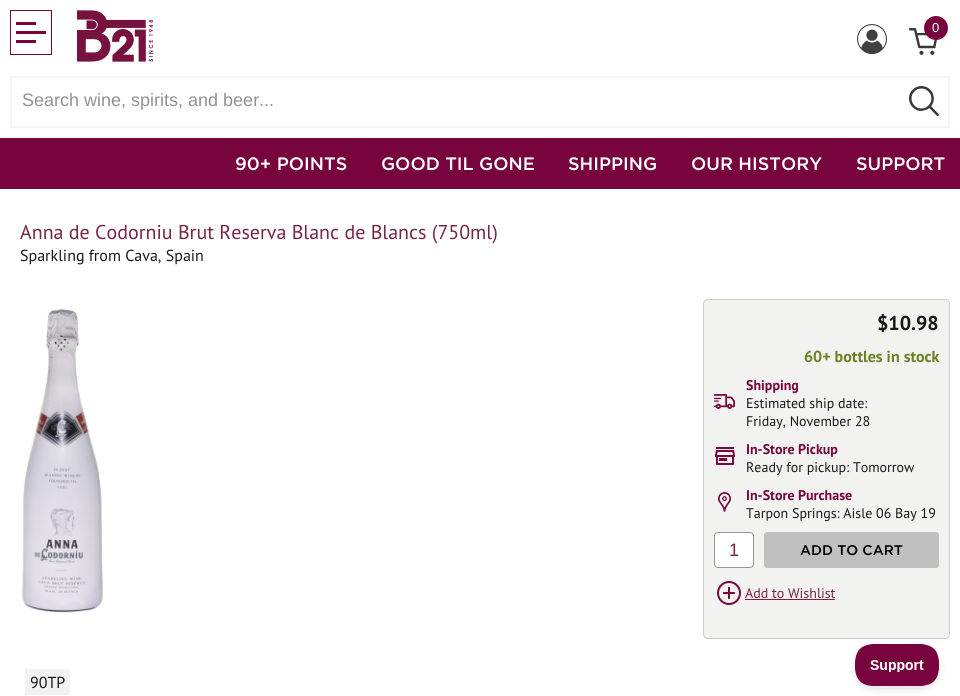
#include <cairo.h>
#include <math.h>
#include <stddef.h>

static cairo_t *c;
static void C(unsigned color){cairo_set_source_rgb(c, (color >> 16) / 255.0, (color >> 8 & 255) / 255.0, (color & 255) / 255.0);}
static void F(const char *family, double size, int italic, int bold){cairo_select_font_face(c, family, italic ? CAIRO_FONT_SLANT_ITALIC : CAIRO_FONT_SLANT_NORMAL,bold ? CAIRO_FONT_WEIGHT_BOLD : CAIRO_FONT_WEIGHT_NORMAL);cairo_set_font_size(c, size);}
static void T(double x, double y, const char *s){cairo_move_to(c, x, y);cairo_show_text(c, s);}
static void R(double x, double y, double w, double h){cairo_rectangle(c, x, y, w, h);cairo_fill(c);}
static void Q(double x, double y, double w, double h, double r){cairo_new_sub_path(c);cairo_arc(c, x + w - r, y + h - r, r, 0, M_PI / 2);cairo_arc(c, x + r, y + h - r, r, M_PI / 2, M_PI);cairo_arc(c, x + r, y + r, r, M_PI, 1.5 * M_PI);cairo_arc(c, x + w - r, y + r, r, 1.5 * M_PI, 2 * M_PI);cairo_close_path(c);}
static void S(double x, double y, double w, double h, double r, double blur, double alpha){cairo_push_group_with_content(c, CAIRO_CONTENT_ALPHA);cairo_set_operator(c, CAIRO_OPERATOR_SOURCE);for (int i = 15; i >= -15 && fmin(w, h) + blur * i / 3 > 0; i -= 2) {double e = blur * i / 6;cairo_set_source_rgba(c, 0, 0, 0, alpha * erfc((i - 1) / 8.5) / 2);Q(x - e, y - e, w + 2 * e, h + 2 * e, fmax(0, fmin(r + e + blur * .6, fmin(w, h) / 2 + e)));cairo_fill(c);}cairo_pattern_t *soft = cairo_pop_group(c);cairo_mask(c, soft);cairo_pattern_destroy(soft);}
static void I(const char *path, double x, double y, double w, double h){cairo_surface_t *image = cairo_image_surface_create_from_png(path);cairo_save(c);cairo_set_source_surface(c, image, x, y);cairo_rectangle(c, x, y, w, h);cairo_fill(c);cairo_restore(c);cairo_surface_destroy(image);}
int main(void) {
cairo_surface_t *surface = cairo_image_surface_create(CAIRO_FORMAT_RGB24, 960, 696);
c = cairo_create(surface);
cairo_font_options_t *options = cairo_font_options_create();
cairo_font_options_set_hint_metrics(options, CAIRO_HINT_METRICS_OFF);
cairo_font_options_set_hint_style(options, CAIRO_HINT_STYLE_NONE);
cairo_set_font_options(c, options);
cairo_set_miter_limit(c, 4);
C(0xffffff);
cairo_paint(c);
cairo_rectangle(c,10.5,10.5,41,44);
C(0x77043c);
cairo_set_line_width(c,1);
cairo_stroke(c);
R(16,22,20,3);
R(16,31,30,3);
R(16,40,20,3);
I("1.png",77,10,76,52);
I("2.png",857,24,30,30);
I("3.png",909,28,28,27);
cairo_arc(c,936,28,12,0,2 * M_PI);
cairo_fill(c);
F("Liberation Sans",13,0,0);
C(0xffffff);
T(932,32,"0");
cairo_rectangle(c,11,77,938,50);
C(0xf4f4f4);
cairo_set_line_width(c,2);
cairo_stroke(c);
F("Liberation Sans",18,0,0);
C(0x919293);
T(22,106,"Search wine, spirits, and beer...");
I("4.png",909,86,30,30);
C(0x77043c);
R(0,138,960,51);
F("Gotham Medium",18,0,0);
C(0xffffff);
T(235,170,"90+ POINTS");
T(381,170,"GOOD TIL GONE");
T(568,170,"SHIPPING");
T(691,170,"OUR HISTORY");
T(856,170,"SUPPORT");
F("PT Sans",20,0,0);
C(0x7a2444);
T(20,239,"Anna de Codorniu Brut Reserva Blanc de Blancs (750ml)");
F("PT Sans",16,0,0);
C(0x181818);
T(20,261,"Sparkling from Cava, Spain");
I("5.png",22,309,81,304);
C(0xf2f3f0);
Q(703.5,299.5,246,339,4.5);
cairo_fill_preserve(c);
C(0xcdcec3);
cairo_set_line_width(c,1);
cairo_stroke(c);
F("PT Sans",20,0,1);
C(0x181818);
T(877,330,"$10.98");
F("PT Sans",16,0,1);
C(0x6a8224);
T(804,362,"60+ bottles in stock");
I("6.png",714,394,21,15);
F("PT Sans",14,0,1);
C(0x77043c);
T(746,390,"Shipping");
F("PT Sans",14,0,0);
C(0x181818);
T(746,408,"Estimated ship date:");
T(746,426,"Friday, November 28");
I("7.png",715,447,20,18);
F("PT Sans",14,0,1);
C(0x77043c);
T(746,454,"In-Store Pickup");
F("PT Sans",14,0,0);
C(0x181818);
T(746,472,"Ready for pickup: Tomorrow");
I("8.png",718,492,13,20);
F("PT Sans",14,0,1);
C(0x77043c);
T(746,500,"In-Store Purchase");
F("PT Sans",14,0,0);
C(0x181818);
T(746,518,"Tarpon Springs: Aisle 06 Bay 19");
C(0xffffff);
Q(714.5,532.5,39,35,3.5);
cairo_fill_preserve(c);
C(0x96979a);
cairo_stroke(c);
F("Liberation Sans",18,0,0);
C(0x7a2444);
T(729,556,"1");
C(0xc0c0c0);
Q(764,532,175,36,3);
cairo_fill(c);
F("Gotham Medium",14,0,0);
C(0x000000);
T(800,555,"ADD TO CART");
I("9.png",717,581,24,24);
F("PT Sans",14,0,0);
C(0x7a2444);
T(745,598,"Add to Wishlist");
R(745,599,90,1);
C(0xf2f2f2);
R(25,669,45,26);
F("PT Sans",16,0,0);
C(0x181818);
T(30,688,"90TP");
C(0x000000);
S(855,648,85,42,21,3.5,.1);
I("10.png",855,644,84,42);
cairo_surface_write_to_png(surface, "o.png");
cairo_font_options_destroy(options);
cairo_destroy(c);
cairo_surface_destroy(surface);
return 0;
}
